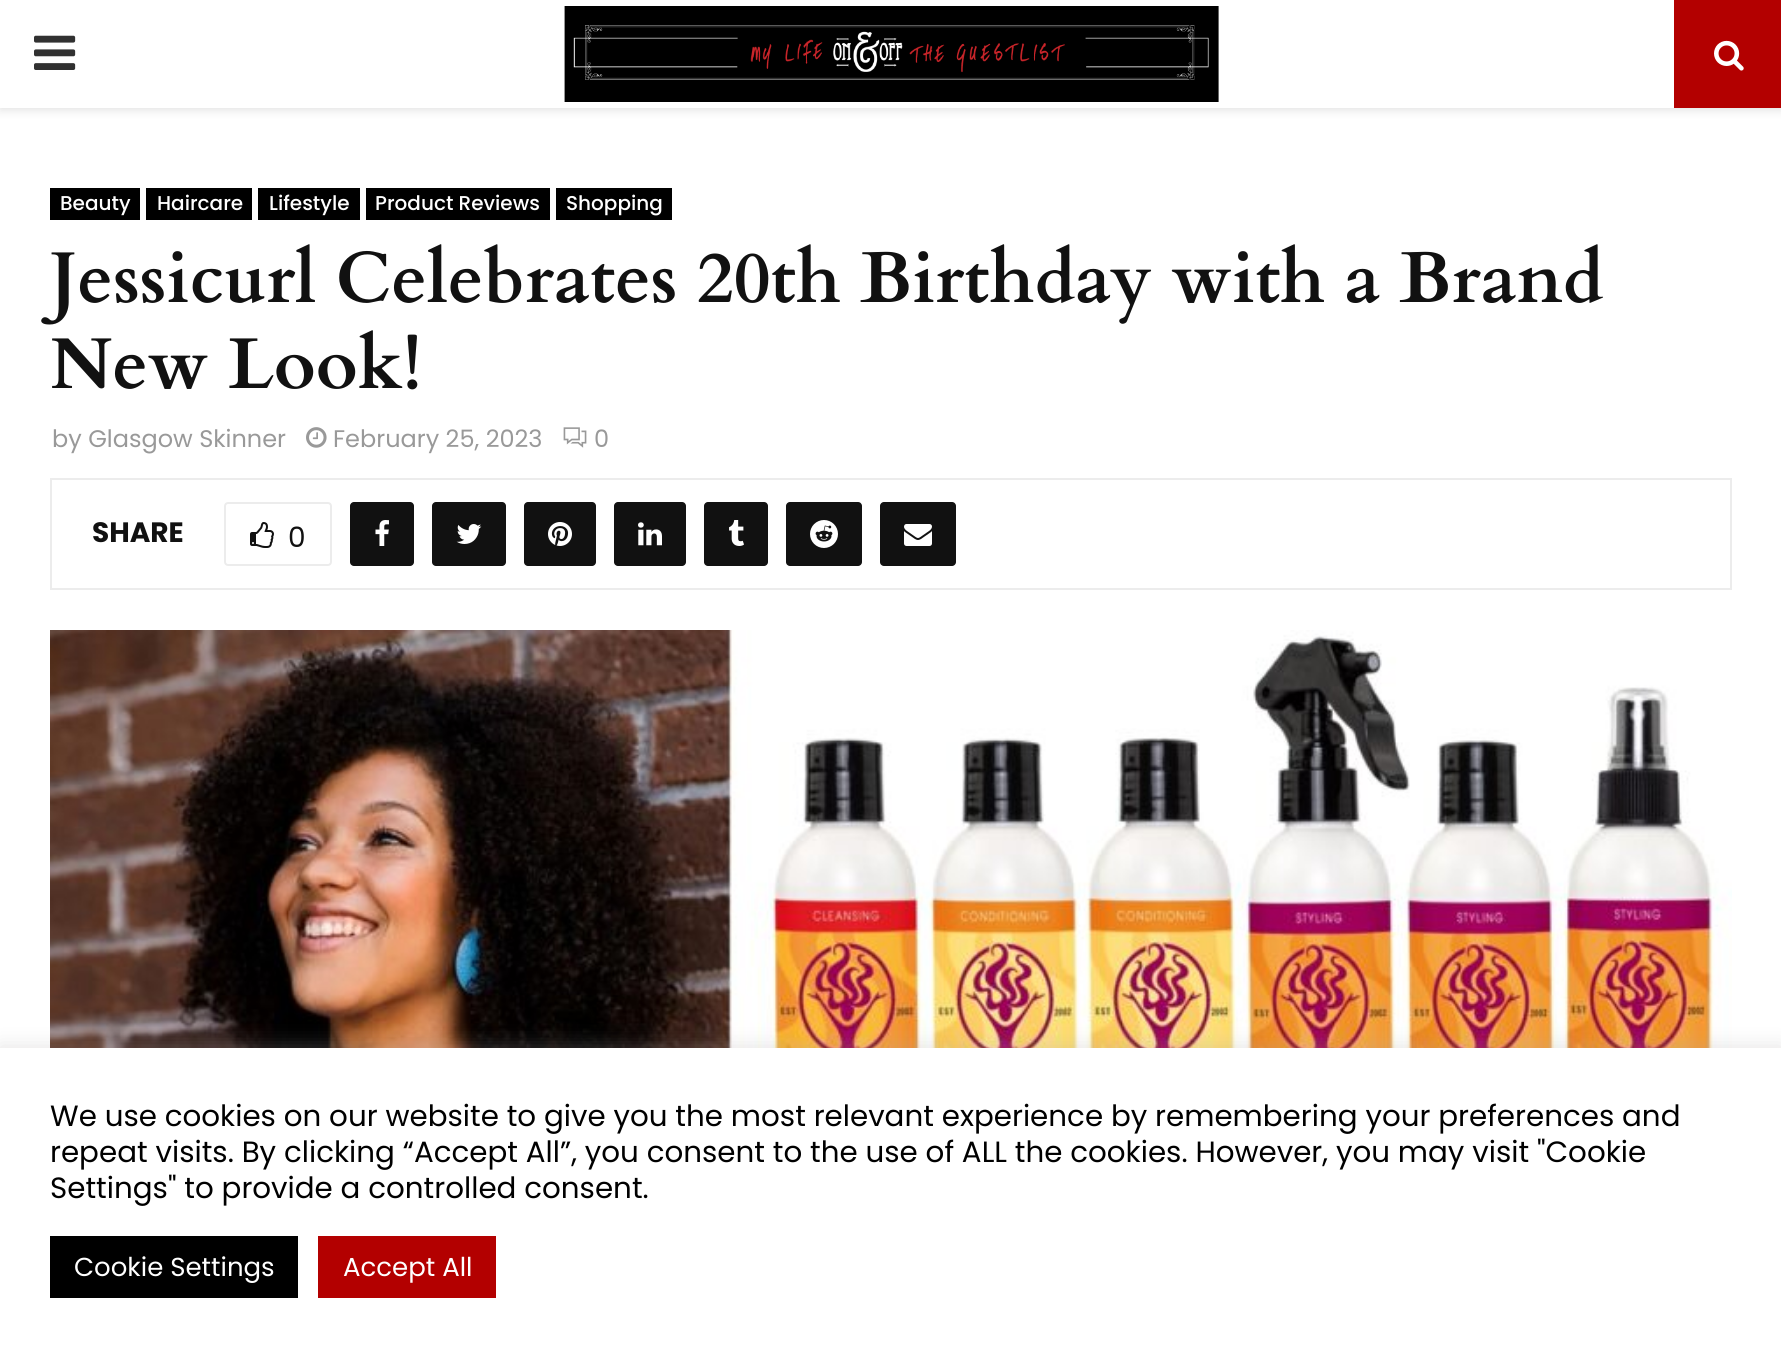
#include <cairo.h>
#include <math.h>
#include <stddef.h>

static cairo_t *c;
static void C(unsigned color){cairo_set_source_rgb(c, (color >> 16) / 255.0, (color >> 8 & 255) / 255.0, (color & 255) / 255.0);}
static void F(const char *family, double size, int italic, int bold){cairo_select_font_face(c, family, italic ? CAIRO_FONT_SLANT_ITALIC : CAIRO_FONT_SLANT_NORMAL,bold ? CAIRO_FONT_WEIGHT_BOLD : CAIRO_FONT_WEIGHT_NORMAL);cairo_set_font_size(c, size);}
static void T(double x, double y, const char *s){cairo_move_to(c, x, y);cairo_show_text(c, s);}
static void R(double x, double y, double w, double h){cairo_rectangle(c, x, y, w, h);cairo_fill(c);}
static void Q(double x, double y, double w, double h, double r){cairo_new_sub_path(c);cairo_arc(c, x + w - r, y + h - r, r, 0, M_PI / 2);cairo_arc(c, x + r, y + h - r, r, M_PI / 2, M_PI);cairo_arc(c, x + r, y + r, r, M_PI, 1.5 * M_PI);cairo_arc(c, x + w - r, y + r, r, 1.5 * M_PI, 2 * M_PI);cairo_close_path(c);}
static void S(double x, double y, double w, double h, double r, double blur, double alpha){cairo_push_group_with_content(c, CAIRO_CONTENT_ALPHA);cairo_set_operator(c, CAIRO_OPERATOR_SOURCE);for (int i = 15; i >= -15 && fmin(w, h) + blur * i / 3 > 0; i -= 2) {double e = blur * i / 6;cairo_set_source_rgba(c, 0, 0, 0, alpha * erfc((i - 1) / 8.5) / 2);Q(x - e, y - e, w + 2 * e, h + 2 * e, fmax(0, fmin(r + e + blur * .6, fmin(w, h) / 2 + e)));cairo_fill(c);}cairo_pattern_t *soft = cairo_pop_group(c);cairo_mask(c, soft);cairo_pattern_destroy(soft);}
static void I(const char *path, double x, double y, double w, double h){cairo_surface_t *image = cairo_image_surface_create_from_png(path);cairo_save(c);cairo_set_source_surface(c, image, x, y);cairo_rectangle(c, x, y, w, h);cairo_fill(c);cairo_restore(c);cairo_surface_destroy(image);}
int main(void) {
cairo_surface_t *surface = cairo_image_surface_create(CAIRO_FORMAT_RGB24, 1781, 1358);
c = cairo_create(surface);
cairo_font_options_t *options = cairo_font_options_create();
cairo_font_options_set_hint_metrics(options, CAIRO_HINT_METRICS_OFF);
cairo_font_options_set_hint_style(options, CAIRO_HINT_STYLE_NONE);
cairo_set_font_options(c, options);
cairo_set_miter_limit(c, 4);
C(0xffffff);
cairo_paint(c);
cairo_save(c);
cairo_rectangle(c,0,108,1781,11);
cairo_clip(c);
C(0xbebebe);
S(0,2,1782,108,0,5,.46);
cairo_restore(c);
I("1.png",34,35,42,35);
I("2.png",564,6,655,96);
C(0xb30000);
R(1674,0,107,108);
I("3.png",1714,40,30,31);
C(0x000000);
R(50,188,90,32);
F("Poppins Medium",20,0,0);
C(0xffffff);
T(60,210,"Beauty");
C(0x000000);
R(146,188,106,32);
C(0xffffff);
T(157,210,"Haircare");
C(0x000000);
R(258,188,102,32);
C(0xffffff);
T(269,210,"Lifestyle");
C(0x000000);
R(366,188,184,32);
C(0xffffff);
T(375,210,"Product Reviews");
C(0x000000);
R(556,188,116,32);
C(0xffffff);
T(566,210,"Shopping");
F("Cardo",72,0,1);
C(0x111111);
T(50,302,"Jessicurl Celebrates 20th Birthday with a Brand");
T(50,388,"New Look!");
F("Poppins",24,0,0);
C(0x999999);
T(52,447,"by Glasgow Skinner");
I("4.png",306,427,21,21);
T(333,447,"February 25, 2023");
I("5.png",563,427,24,21);
T(594,447,"0");
cairo_rectangle(c,51,479,1680,110);
C(0xececec);
cairo_stroke(c);
F("Poppins",28,0,1);
C(0x111111);
T(92,542,"SHARE");
Q(225,503,106,62,3);
C(0xececec);
cairo_stroke(c);
I("6.png",250,522,24,26);
F("Poppins",28,0,0);
C(0x111111);
T(288,547,"0");
Q(350,502,64,64,4);
cairo_fill(c);
I("7.png",375,520,14,26);
Q(432,502,74,64,4);
cairo_fill(c);
I("8.png",456,524,26,20);
Q(524,502,72,64,4);
cairo_fill(c);
I("9.png",548,522,24,24);
Q(614,502,72,64,4);
cairo_fill(c);
I("10.png",638,522,24,24);
Q(704,502,64,64,4);
cairo_fill(c);
I("11.png",729,520,15,26);
Q(786,502,76,64,4);
cairo_fill(c);
I("12.png",810,520,28,28);
Q(880,502,76,64,4);
cairo_fill(c);
I("13.png",904,524,28,22);
I("14.png",50,630,1682,418);
C(0xacabab);
S(0,1046,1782,310,0,10,.3);
C(0xffffff);
R(0,1048,1781,310);
F("Poppins",29.33,0,0);
C(0x000000);
T(50,1126,"We use cookies on our website to give you the most relevant experience by remembering your preferences and");
T(50,1162,"repeat visits. By clicking “Accept All”, you consent to the use of ALL the cookies. However, you may visit \"Cookie");
T(50,1198,"Settings\" to provide a controlled consent.");
R(50,1236,248,62);
F("Poppins",26,0,0);
C(0xffffff);
T(74,1276,"Cookie Settings");
C(0xb30000);
R(318,1236,178,62);
C(0xffffff);
T(343,1276,"Accept All");
cairo_surface_write_to_png(surface, "o.png");
cairo_font_options_destroy(options);
cairo_destroy(c);
cairo_surface_destroy(surface);
return 0;
}
